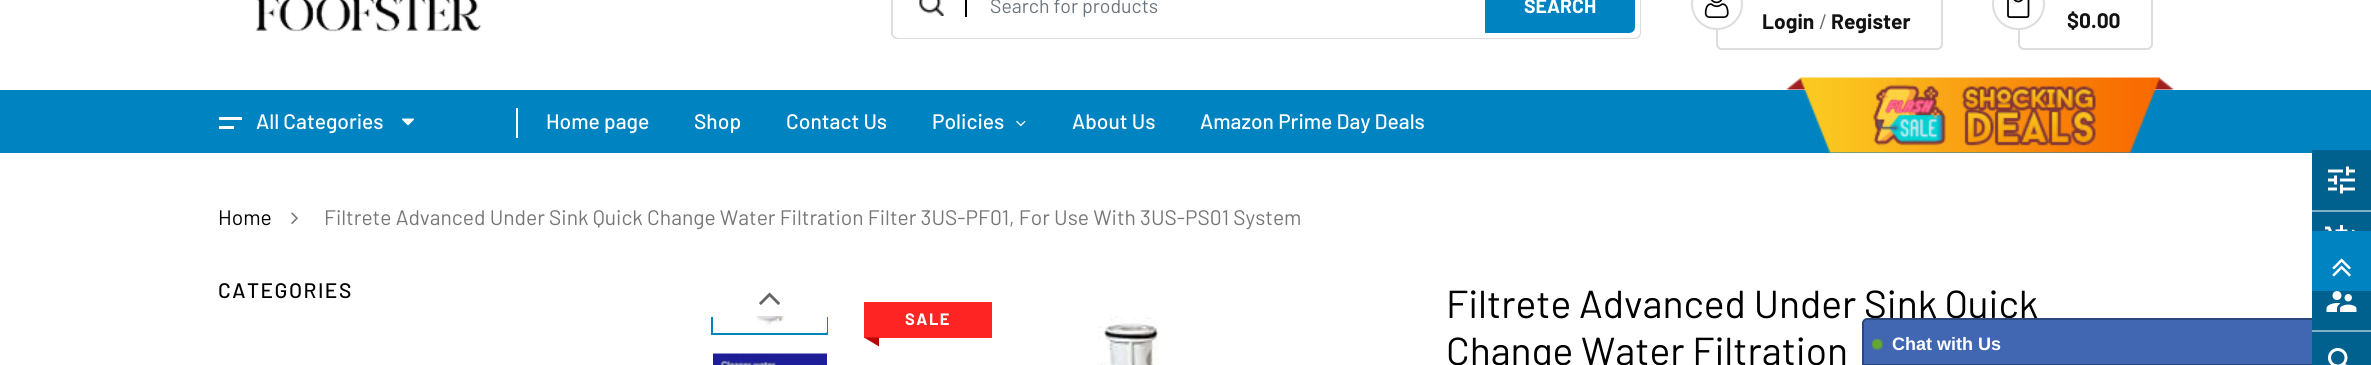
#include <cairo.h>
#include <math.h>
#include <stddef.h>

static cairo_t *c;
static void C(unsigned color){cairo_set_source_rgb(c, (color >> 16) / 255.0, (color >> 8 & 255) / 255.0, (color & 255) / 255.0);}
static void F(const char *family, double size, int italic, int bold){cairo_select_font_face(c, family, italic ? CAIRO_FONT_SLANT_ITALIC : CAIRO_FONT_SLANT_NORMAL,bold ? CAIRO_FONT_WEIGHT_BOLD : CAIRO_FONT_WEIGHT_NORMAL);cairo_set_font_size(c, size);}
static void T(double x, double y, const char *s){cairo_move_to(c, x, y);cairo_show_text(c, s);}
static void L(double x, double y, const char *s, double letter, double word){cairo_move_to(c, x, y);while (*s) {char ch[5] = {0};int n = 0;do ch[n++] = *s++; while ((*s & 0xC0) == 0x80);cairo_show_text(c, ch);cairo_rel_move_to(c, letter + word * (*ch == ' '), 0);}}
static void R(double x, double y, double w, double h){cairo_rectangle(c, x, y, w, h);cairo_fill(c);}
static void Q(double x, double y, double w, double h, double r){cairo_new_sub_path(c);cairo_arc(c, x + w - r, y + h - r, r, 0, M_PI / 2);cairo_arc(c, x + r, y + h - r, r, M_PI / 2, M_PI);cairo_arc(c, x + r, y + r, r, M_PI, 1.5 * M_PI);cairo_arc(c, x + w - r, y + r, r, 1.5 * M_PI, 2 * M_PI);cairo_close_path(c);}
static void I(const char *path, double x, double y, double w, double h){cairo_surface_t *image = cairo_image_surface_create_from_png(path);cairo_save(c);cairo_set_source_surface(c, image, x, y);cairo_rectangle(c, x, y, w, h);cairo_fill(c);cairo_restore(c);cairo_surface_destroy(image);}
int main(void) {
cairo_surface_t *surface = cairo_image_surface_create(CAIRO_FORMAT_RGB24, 2371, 365);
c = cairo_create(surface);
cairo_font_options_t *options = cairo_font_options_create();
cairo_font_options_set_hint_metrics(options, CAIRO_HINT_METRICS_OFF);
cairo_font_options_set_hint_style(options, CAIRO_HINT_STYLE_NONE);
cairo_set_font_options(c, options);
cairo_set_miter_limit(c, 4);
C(0xffffff);
cairo_paint(c);
I("1.png",255,0,227,33);
Q(892,-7,748,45,5);
C(0xdddddd);
cairo_stroke(c);
C(0xffffff);
Q(893,-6,747,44,6);
cairo_fill(c);
I("2.png",919,0,25,16);
C(0x000000);
R(965,0,2,17);
F("Barlow",19.5,0,0);
C(0x6c757d);
T(990,13,"Search for products");
C(0x0083c1);
cairo_new_path(c);
cairo_move_to(c,1485,-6);
cairo_line_to(c,1629,-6);
cairo_curve_to(c,1632.5,-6,1635,-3.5,1635,0);
cairo_line_to(c,1635,27);
cairo_curve_to(c,1635,30.5,1632.5,33,1629,33);
cairo_line_to(c,1485,33);
cairo_close_path(c);
cairo_fill(c);
F("Barlow",19.5,0,1);
C(0xffffff);
T(1524,13,"SEARCH");
Q(1717,-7,225,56,5);
C(0xdddddd);
cairo_stroke(c);
C(0xffffff);
cairo_arc(c,1717,4,26,0,2 * M_PI);
cairo_fill(c);
I("3.png",1704,0,25,18);
cairo_arc(c,1717,4,25,0,2 * M_PI);
C(0xdddddd);
cairo_stroke(c);
F("Barlow",21,0,1);
C(0x121212);
T(1762,29,"Login");
F("Barlow",21,0,0);
C(0x6d6d6d);
T(1819,29,"/");
F("Barlow",21,0,1);
C(0x121212);
T(1831,29,"Register");
Q(2019,-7,133,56,5);
C(0xdddddd);
cairo_stroke(c);
C(0xffffff);
Q(1992,-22,53,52,26);
cairo_fill(c);
I("4.png",2007,0,23,18);
Q(1993,-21,51,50,25);
C(0xdddddd);
cairo_stroke(c);
C(0x121212);
T(2067,28,"$0.00");
C(0x0083c1);
R(0,90,2371,63);
C(0xffffff);
R(219,117,23,3);
F("Barlow Medium",21,0,0);
T(256,129,"All Categories");
R(219,126,15,3);
I("5.png",402,118,12,8);
R(516,108,2,30);
T(546,129,"Home page");
T(694,129,"Shop");
T(786,129,"Contact Us");
T(932,129,"Policies");
I("6.png",1016,120,10,7);
T(1072,129,"About Us");
T(1200,129,"Amazon Prime Day Deals");
I("7.png",1786,77,388,76);
F("Barlow",21,0,0);
C(0x000000);
T(218,225,"Home");
I("8.png",291,212,7,12);
C(0x777777);
T(324,225,"Filtrete Advanced Under Sink Quick Change Water Filtration Filter 3US-PF01, For Use With 3US-PS01 System");
F("Barlow Medium",21,0,0);
C(0x000000);
L(218,298,"CATEGORIES",1.5,0);
I("11.png",759,292,21,13);
cairo_save(c);
cairo_rectangle(c,710,317,120,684);
cairo_clip(c);
cairo_rectangle(c,712,183,115,151);
C(0x0083c1);
cairo_stroke(c);
cairo_restore(c);
I("9.png",756,316,71,17);
F("Barlow",21,0,0);
C(0xf9f9f9);
T(775,321,".");
I("10.png",713,353,114,12);
C(0xfe2424);
R(864,302,128,36);
F("Barlow",16.5,0,1);
C(0xffffff);
L(905,325,"SALE",1.5,0);
C(0xbb0101);
cairo_new_path(c);
cairo_move_to(c,864,337.5);
cairo_line_to(c,879,337.5);
cairo_line_to(c,879,346.5);
cairo_close_path(c);
cairo_fill(c);
I("12.png",1098,315,61,50);
F("Barlow",39,0,0);
C(0x000000);
T(1446,318,"Filtrete Advanced Under Sink Quick");
T(1446,365,"Change Water Filtration");
C(0x00608e);
R(2312,150,59,60);
I("13.png",2328,166,27,28);
R(2312,212,59,19);
C(0x80b0c7);
R(2312,210,59,2);
I("14.png",2324,225,31,6);
C(0x4267b2);
cairo_new_path(c);
cairo_move_to(c,1867,319);
cairo_line_to(c,2337,319);
cairo_curve_to(c,2339,319,2341,321,2341,323);
cairo_line_to(c,2341,365);
cairo_line_to(c,1863,365);
cairo_line_to(c,1863,323);
cairo_curve_to(c,1863,321,1865,319,1867,319);
cairo_close_path(c);
cairo_fill_preserve(c);
C(0x29487d);
cairo_stroke(c);
C(0x00608e);
R(2312,291,59,39);
I("15.png",2326,291,31,21);
R(2312,332,59,33);
C(0x80b0c7);
R(2312,330,59,2);
I("16.png",2328,348,20,17);
C(0x0083c1);
R(2312,231,59,60);
I("17.png",2332,258,19,19);
I("18.png",1871,338,12,12);
F("Liberation Sans",18,0,1);
C(0xffffff);
T(1892,350,"Chat with Us");
cairo_surface_write_to_png(surface, "o.png");
cairo_font_options_destroy(options);
cairo_destroy(c);
cairo_surface_destroy(surface);
return 0;
}
